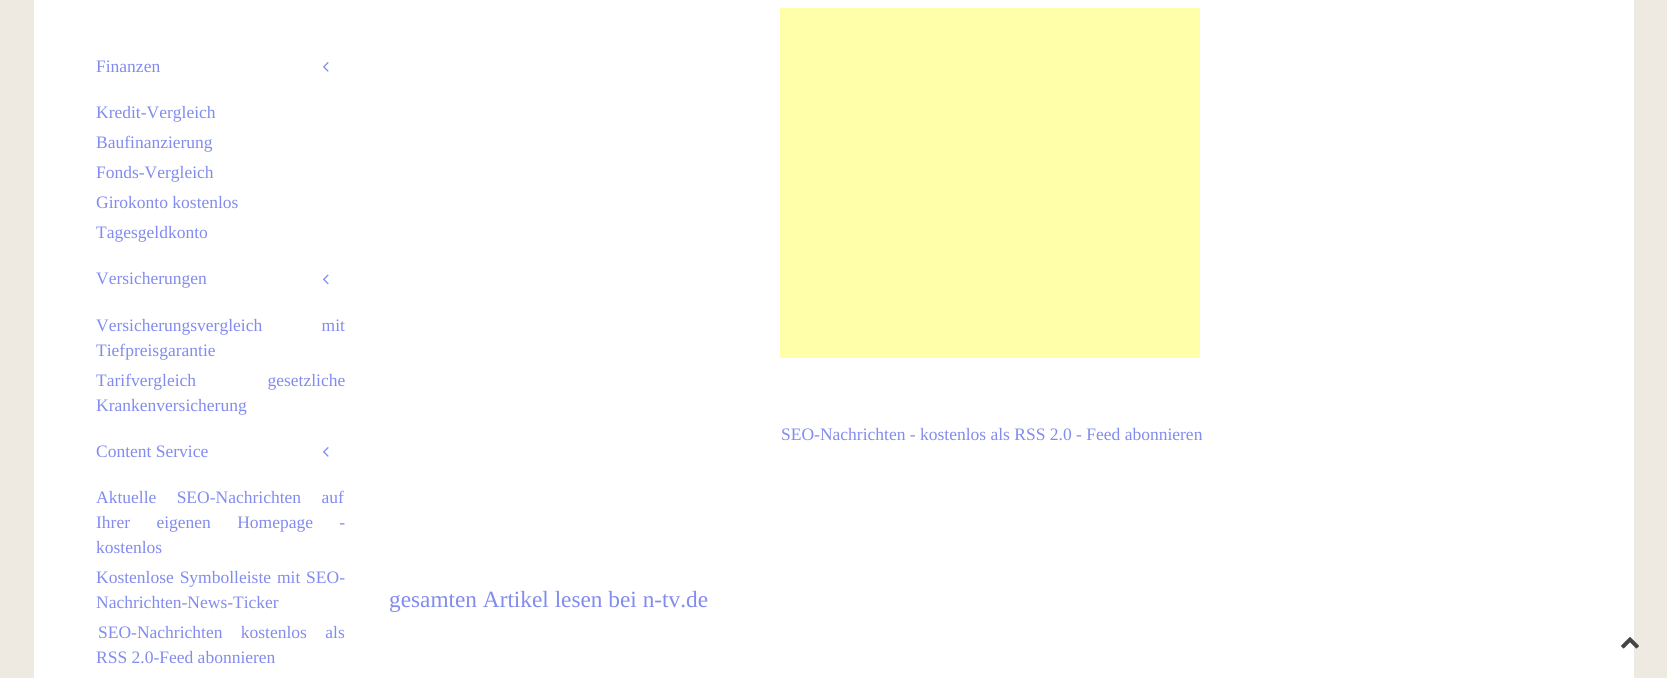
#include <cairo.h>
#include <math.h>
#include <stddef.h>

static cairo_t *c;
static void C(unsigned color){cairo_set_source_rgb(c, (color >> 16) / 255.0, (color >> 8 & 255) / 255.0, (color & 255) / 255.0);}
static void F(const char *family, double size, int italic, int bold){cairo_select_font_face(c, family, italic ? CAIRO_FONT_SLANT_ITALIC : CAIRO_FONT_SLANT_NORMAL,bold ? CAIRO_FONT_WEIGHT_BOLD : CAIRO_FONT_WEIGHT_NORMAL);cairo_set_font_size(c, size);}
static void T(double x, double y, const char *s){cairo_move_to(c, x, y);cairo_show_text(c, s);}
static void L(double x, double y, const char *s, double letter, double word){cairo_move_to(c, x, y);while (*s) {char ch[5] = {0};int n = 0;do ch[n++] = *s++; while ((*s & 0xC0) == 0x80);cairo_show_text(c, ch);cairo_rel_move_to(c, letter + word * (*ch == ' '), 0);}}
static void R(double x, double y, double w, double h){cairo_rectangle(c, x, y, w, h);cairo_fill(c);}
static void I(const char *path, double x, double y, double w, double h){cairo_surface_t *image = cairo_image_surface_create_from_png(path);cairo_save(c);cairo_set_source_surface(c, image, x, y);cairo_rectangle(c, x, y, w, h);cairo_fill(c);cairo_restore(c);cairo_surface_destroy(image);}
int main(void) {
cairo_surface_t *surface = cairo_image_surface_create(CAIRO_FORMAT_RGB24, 1667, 678);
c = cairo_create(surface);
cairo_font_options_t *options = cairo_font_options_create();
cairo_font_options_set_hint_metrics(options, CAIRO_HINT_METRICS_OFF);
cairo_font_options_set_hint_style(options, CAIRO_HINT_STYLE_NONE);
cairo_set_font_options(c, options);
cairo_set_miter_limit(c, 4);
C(0xeeeae2);
cairo_paint(c);
C(0xffffff);
R(34,0,1600,678);
F("Liberation Serif",17.5,0,0);
C(0x828bee);
T(96,72,"Finanzen");
I("1.png",323,62,6,10);
T(96,118,"Kredit-Vergleich");
T(96,148,"Baufinanzierung");
T(96,178,"Fonds-Vergleich");
T(96,208,"Girokonto kostenlos");
T(96,238,"Tagesgeldkonto");
T(96,284,"Versicherungen");
I("2.png",323,274,6,11);
L(96,331,"Versicherungsvergleich mit",0,55);
T(96,356,"Tiefpreisgarantie");
L(96,386,"Tarifvergleich gesetzliche",0,67);
T(96,411,"Krankenversicherung");
T(96,457,"Content Service");
I("1.png",323,447,6,10);
L(96,503,"Aktuelle SEO-Nachrichten auf",0,16);
L(96,528,"Ihrer eigenen Homepage -",0,22);
T(96,553,"kostenlos");
L(96,583,"Kostenlose Symbolleiste mit SEO-",0,1.5);
T(96,608,"Nachrichten-News-Ticker");
L(98,638,"SEO-Nachrichten kostenlos als",0,14);
T(96,663,"RSS 2.0-Feed abonnieren");
C(0xffffaa);
R(780,8,420,350);
C(0x828bee);
T(781,440,"SEO-Nachrichten - kostenlos als RSS 2.0 - Feed abonnieren");
F("Liberation Serif",23.3,0,0);
T(389,607,"gesamten Artikel lesen bei n-tv.de");
I("3.png",1621,637,18,12);
cairo_surface_write_to_png(surface, "o.png");
cairo_font_options_destroy(options);
cairo_destroy(c);
cairo_surface_destroy(surface);
return 0;
}
